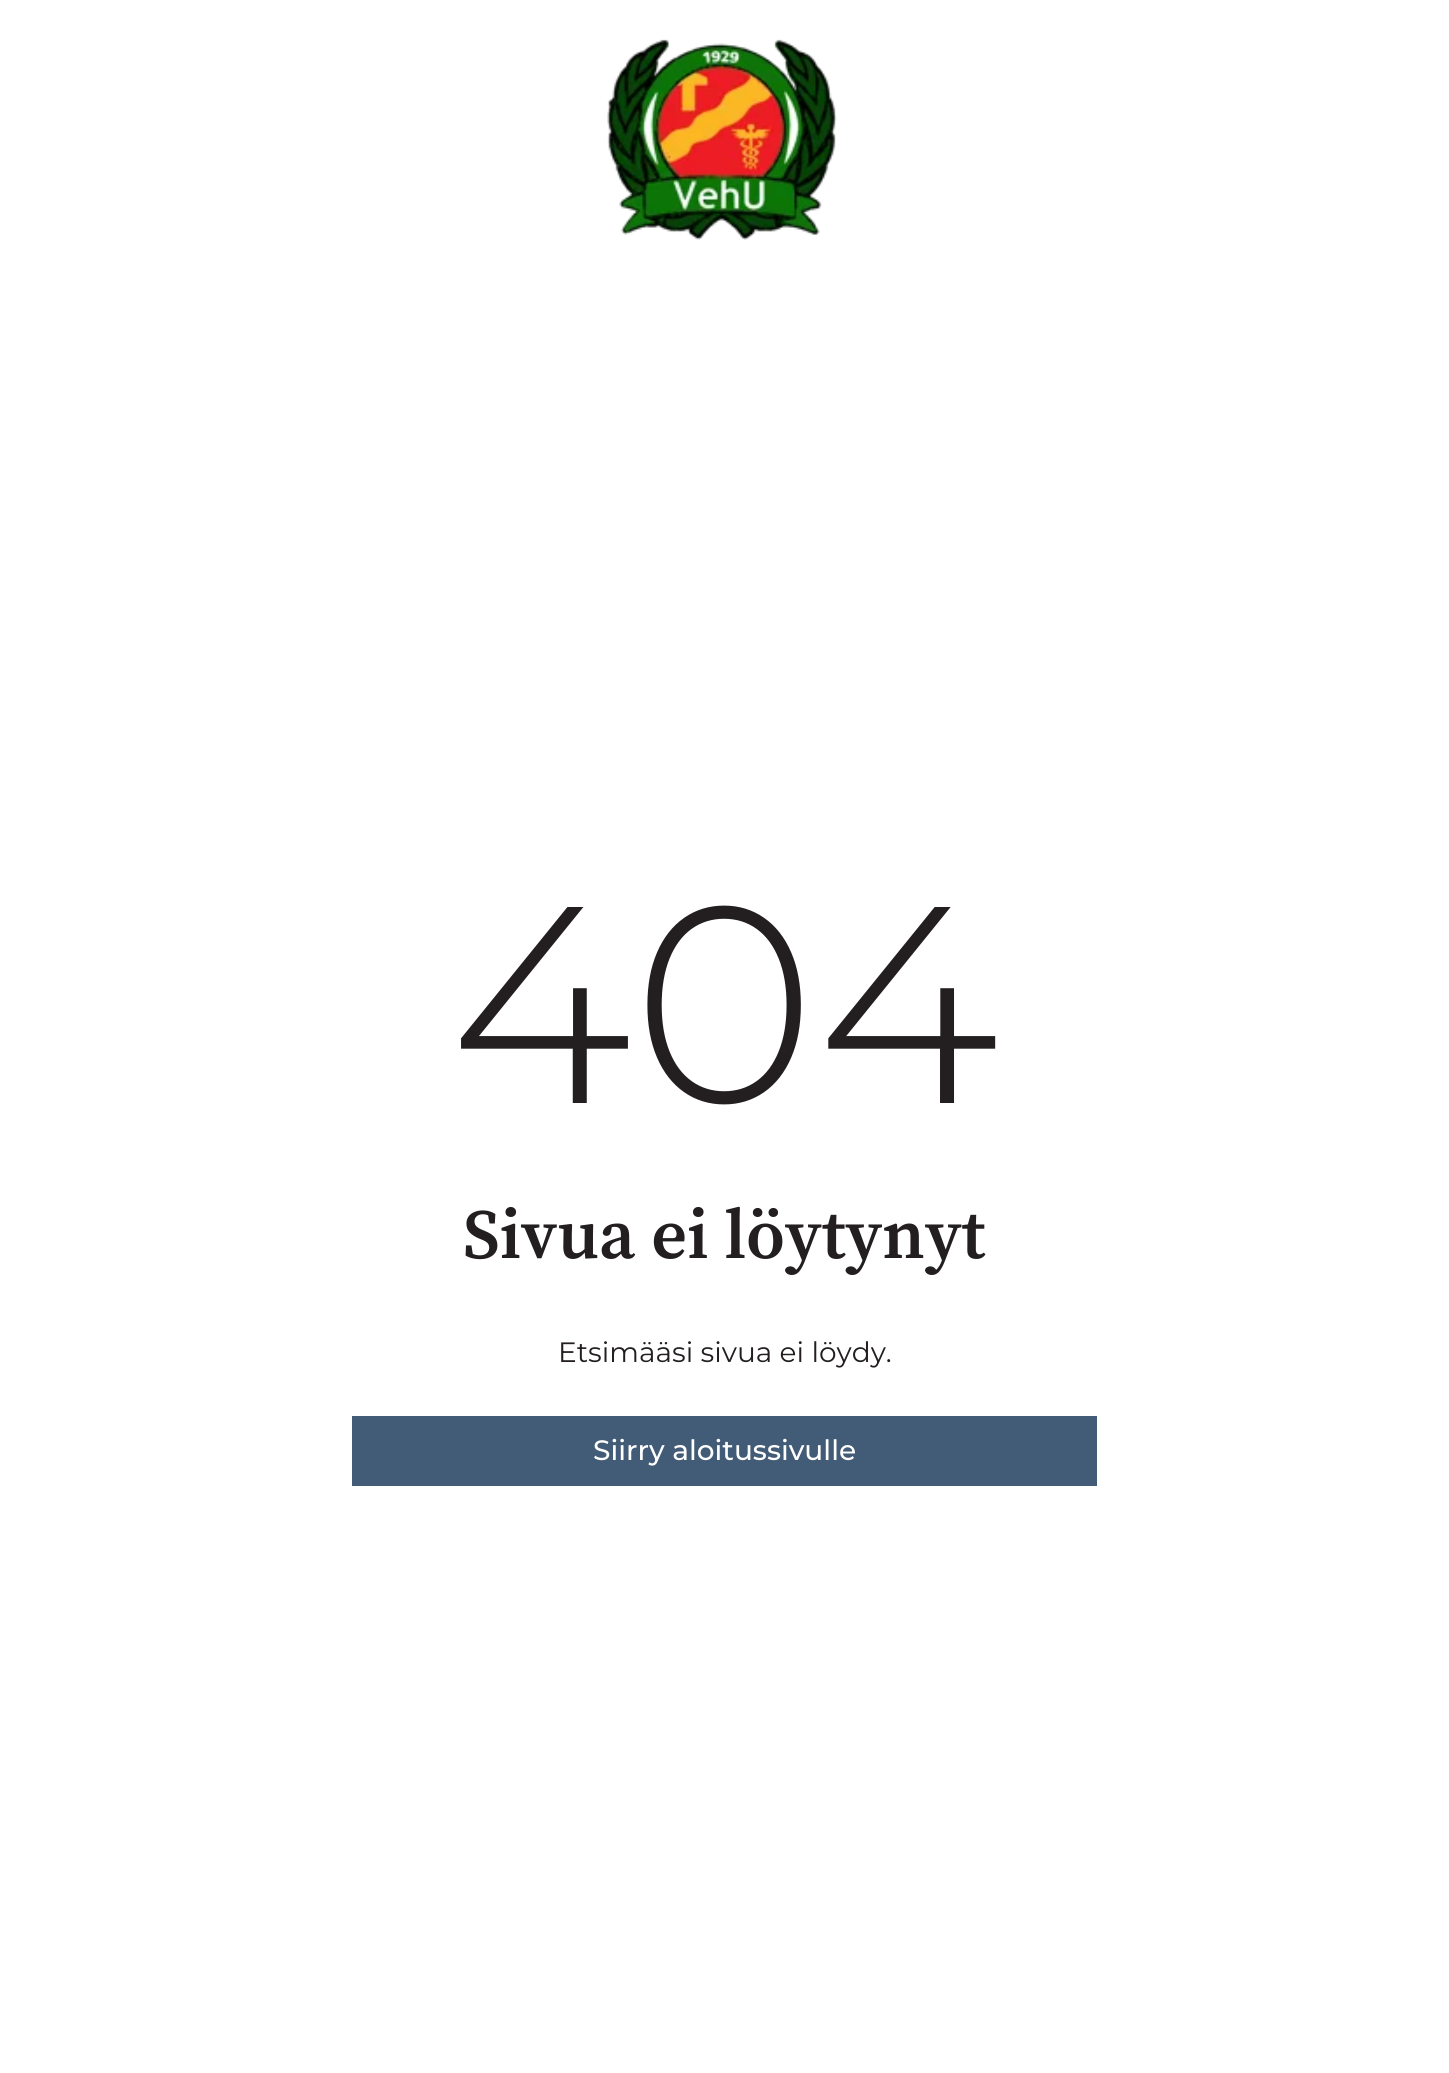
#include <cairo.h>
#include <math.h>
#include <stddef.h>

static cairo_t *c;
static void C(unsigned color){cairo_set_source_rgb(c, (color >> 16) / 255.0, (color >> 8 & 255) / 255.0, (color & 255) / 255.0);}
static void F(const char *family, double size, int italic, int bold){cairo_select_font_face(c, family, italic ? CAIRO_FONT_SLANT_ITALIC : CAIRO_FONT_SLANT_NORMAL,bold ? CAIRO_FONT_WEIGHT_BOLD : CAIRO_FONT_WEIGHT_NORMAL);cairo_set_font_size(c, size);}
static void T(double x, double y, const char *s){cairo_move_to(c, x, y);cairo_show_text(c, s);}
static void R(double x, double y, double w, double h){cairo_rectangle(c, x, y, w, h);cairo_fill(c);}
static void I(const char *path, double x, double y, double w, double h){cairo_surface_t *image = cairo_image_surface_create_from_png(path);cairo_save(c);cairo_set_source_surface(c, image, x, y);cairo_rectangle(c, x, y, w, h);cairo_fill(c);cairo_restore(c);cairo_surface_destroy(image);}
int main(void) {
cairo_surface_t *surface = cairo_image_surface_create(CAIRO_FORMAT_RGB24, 1449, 2073);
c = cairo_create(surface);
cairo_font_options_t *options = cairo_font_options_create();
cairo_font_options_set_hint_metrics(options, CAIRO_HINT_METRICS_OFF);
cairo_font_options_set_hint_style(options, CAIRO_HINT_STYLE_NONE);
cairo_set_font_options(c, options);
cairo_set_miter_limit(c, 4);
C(0xffffff);
cairo_paint(c);
I("1.png",607,39,230,201);
F("Montserrat Light",280,0,0);
C(0x231f20);
T(449,1103,"404");
F("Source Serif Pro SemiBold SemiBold",70,0,0);
T(463,1258,"Sivua ei löytynyt");
F("Montserrat",28,0,0);
T(558,1362,"Etsimääsi sivua ei löydy.");
C(0x425b76);
R(352,1416,745,70);
F("Montserrat Medium",28,0,0);
C(0xffffff);
T(593,1460,"Siirry aloitussivulle");
cairo_surface_write_to_png(surface, "o.png");
cairo_font_options_destroy(options);
cairo_destroy(c);
cairo_surface_destroy(surface);
return 0;
}
